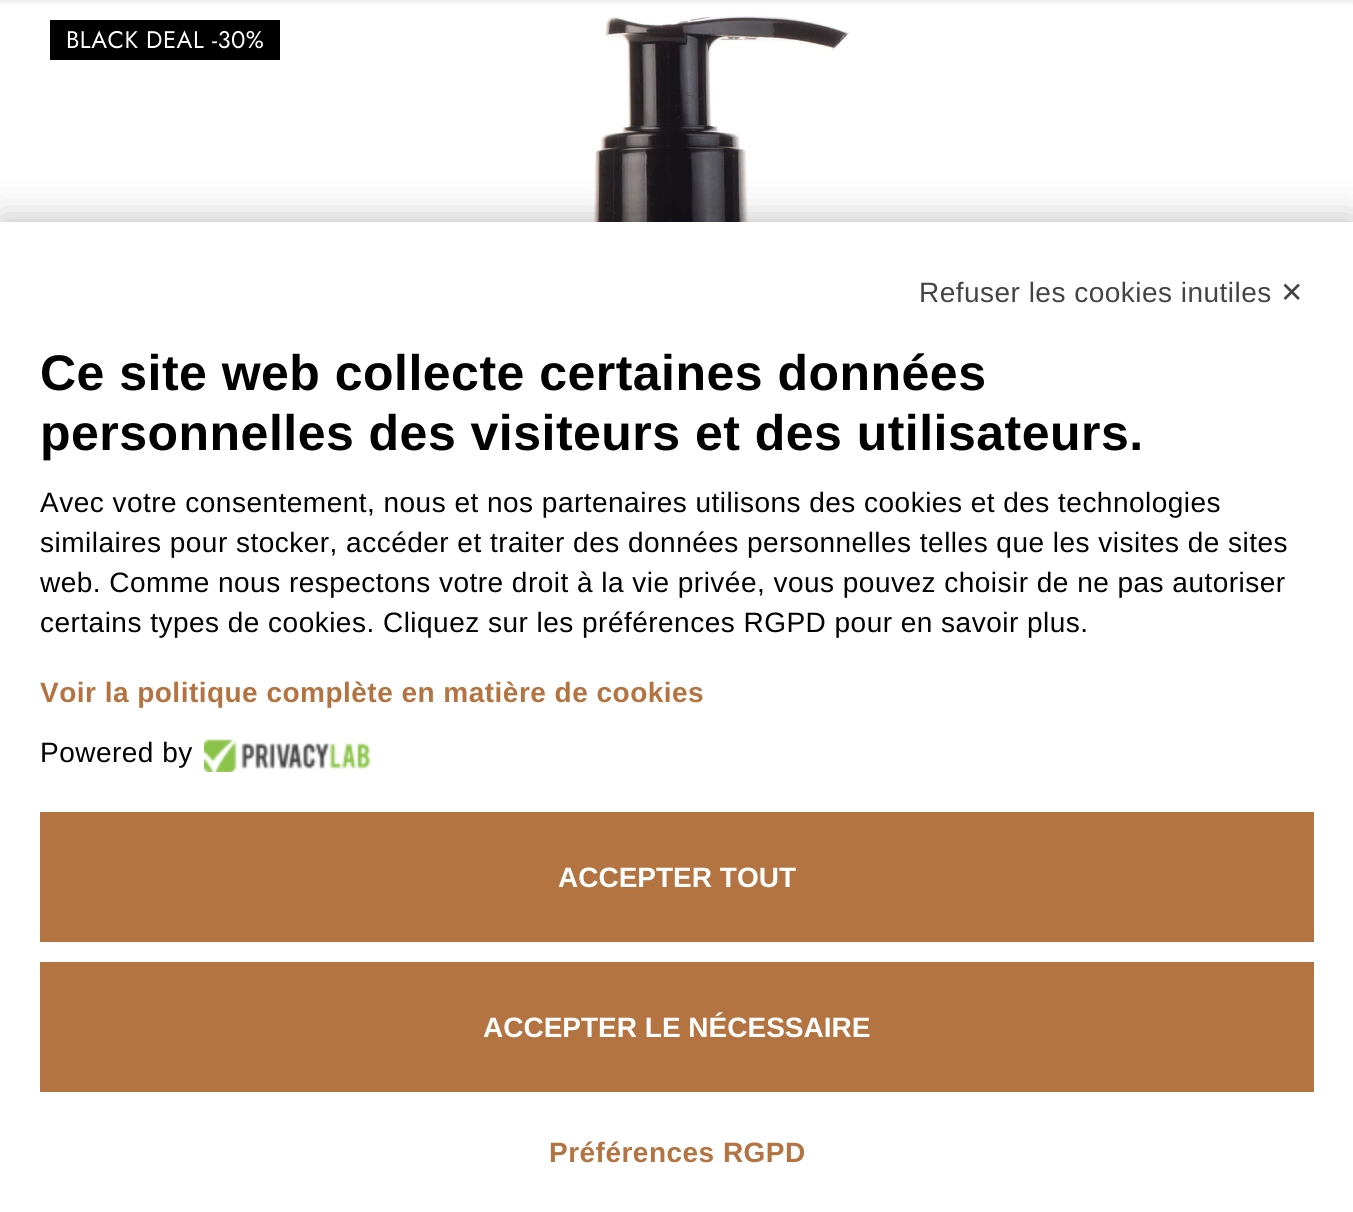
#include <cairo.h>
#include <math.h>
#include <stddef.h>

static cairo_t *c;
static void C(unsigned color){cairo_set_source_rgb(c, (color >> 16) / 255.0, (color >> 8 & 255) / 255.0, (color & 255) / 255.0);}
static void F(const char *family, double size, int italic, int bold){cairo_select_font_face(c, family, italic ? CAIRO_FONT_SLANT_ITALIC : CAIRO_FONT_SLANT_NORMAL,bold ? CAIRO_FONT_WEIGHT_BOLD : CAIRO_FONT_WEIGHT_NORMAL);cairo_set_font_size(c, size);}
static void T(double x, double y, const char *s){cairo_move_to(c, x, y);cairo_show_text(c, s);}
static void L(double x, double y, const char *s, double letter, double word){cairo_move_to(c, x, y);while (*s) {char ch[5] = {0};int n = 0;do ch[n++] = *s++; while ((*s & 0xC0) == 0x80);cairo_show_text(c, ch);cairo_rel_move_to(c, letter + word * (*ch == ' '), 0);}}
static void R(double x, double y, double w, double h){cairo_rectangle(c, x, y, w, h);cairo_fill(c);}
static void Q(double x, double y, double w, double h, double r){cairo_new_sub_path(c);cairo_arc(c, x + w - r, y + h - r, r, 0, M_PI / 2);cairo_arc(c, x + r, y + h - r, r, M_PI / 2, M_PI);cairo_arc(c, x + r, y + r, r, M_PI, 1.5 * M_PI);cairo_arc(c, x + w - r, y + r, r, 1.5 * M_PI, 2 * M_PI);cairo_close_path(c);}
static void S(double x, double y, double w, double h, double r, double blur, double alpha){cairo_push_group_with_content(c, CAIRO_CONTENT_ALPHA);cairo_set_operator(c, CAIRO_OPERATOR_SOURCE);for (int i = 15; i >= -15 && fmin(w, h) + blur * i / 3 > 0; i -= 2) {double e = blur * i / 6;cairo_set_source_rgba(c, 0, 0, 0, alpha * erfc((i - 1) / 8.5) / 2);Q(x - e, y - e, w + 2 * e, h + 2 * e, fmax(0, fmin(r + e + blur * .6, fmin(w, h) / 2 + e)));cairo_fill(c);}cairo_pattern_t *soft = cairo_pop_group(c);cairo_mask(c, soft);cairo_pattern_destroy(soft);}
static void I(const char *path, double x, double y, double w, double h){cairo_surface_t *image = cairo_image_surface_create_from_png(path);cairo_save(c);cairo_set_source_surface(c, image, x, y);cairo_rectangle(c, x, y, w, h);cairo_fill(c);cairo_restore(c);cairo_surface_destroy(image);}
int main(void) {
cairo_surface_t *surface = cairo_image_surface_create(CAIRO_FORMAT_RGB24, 1353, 1212);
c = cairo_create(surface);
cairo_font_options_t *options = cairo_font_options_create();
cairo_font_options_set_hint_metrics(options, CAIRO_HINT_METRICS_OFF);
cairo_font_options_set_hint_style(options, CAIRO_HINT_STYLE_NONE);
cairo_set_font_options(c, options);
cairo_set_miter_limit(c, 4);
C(0xffffff);
cairo_paint(c);
C(0x000000);
S(0,-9,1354,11,0,3,.1);
C(0x000000);
R(50,20,230,40);
F("Jost",24,0,0);
C(0xffffff);
L(66,48,"BLACK DEAL -30%",.48,0);
I("1.png",501,15,461,207);
C(0x000000);
S(0,222,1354,990,0,20,.27);
C(0xffffff);
R(0,222,1353,990);
F("Liberation Sans",28,0,0);
C(0x444444);
L(919,302,"Refuser les cookies inutiles",.48,0);
F("DejaVu Sans",28,0,0);
L(1280,302,"✕",.48,0);
F("Liberation Sans",50,0,1);
C(0x000000);
L(40,390,"Ce site web collecte certaines données",.48,0);
L(40,450,"personnelles des visiteurs et des utilisateurs.",.48,0);
F("Liberation Sans",28,0,0);
L(40,512,"Avec votre consentement, nous et nos partenaires utilisons des cookies et des technologies",.48,0);
L(40,552,"similaires pour stocker, accéder et traiter des données personnelles telles que les visites de sites",.48,0);
L(40,592,"web. Comme nous respectons votre droit à la vie privée, vous pouvez choisir de ne pas autoriser",.48,0);
L(40,632,"certains types de cookies. Cliquez sur les préférences RGPD pour en savoir plus.",.48,0);
F("Liberation Sans",28,0,1);
C(0xb47441);
L(40,702,"Voir la politique complète en matière de cookies",.48,0);
F("Liberation Sans",28,0,0);
C(0x000000);
L(40,762,"Powered by",.48,0);
I("2.png",204,739,167,33);
C(0xb47441);
R(40,812,1274,130);
F("Liberation Sans",28,0,1);
C(0xffffff);
T(558,887,"ACCEPTER TOUT");
C(0xb47441);
R(40,962,1274,130);
C(0xffffff);
T(483,1037,"ACCEPTER LE NÉCESSAIRE");
C(0xb47441);
L(549,1162,"Préférences RGPD",.48,0);
cairo_surface_write_to_png(surface, "o.png");
cairo_font_options_destroy(options);
cairo_destroy(c);
cairo_surface_destroy(surface);
return 0;
}
